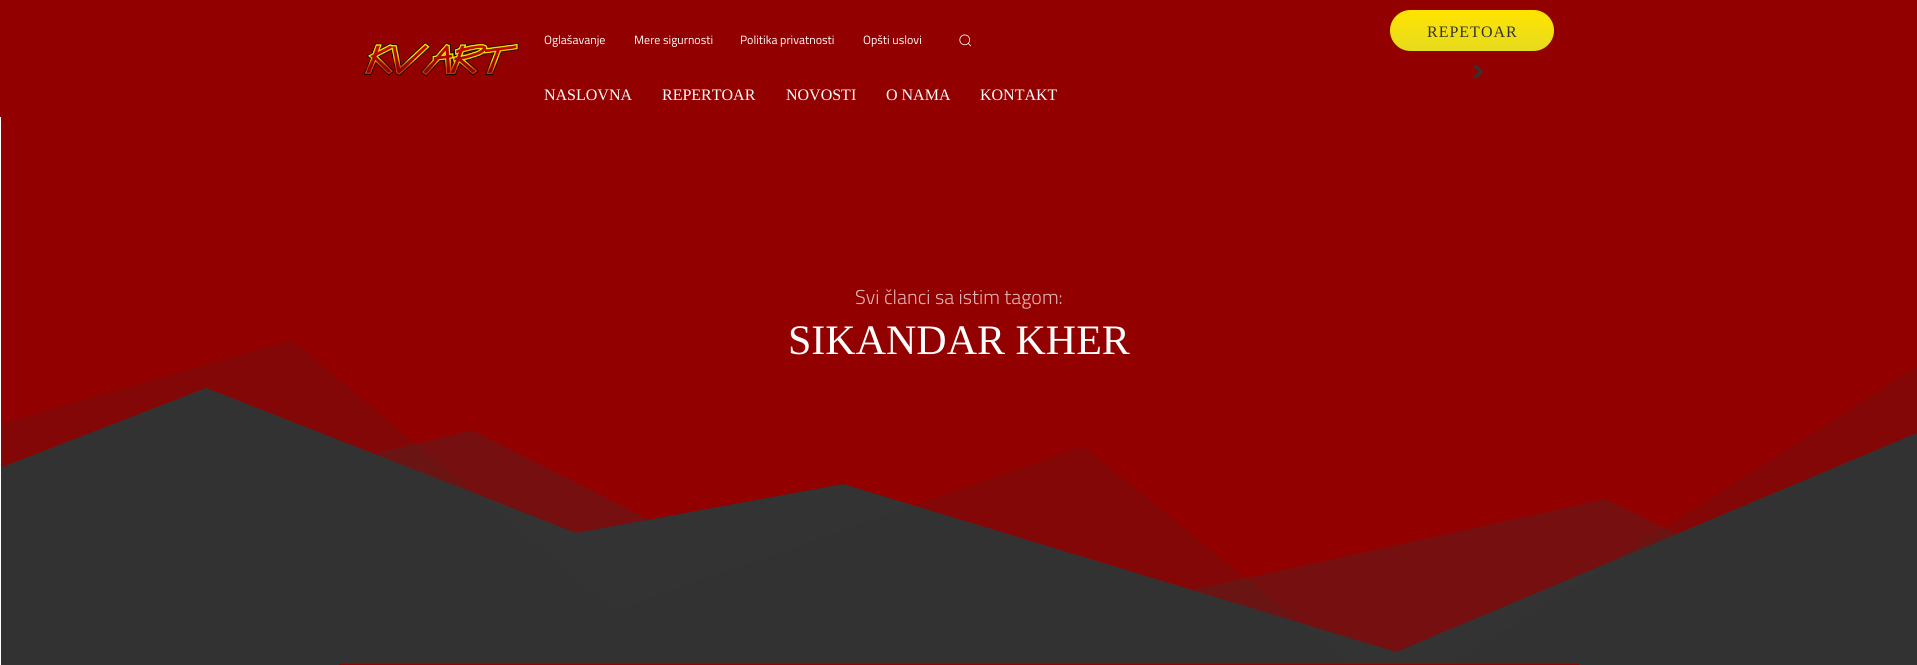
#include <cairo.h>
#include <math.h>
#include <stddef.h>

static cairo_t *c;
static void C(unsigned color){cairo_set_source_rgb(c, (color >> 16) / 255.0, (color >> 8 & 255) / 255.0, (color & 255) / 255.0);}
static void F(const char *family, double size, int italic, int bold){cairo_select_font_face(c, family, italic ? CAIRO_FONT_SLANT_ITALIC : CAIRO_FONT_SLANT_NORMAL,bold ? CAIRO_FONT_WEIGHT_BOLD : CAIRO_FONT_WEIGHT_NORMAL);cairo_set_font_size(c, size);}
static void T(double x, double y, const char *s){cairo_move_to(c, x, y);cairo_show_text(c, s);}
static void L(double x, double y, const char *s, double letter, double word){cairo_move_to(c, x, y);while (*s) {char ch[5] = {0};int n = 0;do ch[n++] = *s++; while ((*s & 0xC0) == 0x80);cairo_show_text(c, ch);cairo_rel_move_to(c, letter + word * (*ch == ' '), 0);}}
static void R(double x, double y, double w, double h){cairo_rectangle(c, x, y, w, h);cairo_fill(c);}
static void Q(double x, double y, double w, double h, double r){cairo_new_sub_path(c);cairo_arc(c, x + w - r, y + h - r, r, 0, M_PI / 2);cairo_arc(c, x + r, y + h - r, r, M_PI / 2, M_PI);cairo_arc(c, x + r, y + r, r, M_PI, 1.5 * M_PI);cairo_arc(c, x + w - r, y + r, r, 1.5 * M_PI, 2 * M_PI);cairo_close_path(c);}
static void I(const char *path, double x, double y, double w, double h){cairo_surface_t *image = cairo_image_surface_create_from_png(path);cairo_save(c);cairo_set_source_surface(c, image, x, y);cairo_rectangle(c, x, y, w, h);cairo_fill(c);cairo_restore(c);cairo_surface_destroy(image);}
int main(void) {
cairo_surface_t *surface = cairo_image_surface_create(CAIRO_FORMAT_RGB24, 1917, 665);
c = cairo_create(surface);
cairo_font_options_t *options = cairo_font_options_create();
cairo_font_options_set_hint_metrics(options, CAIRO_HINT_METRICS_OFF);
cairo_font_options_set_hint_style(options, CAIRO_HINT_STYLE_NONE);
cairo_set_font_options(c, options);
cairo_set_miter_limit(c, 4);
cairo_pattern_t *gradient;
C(0xffffff);
cairo_paint(c);
C(0x930000);
R(0,0,1917,117);
I("1.png",363,42,156,35);
gradient = cairo_pattern_create_linear(1472,51,1472,10);
cairo_pattern_add_color_stop_rgba(gradient,0,0.906,0.859,0.122,1);
cairo_pattern_add_color_stop_rgba(gradient,1,1,0.894,0,1);
cairo_set_source(c,gradient);
cairo_pattern_destroy(gradient);
Q(1390,10,164,41,20.5);
cairo_fill(c);
F("Liberation Serif",16,0,0);
C(0x333333);
L(1427,37,"REPETOAR",1,0);
I("2.png",1473,64,10,15);
F("Titillium Web",12,0,0);
C(0xffffff);
T(544,44,"Oglašavanje");
T(634,44,"Mere sigurnosti");
T(740,44,"Politika privatnosti");
T(863,44,"Opšti uslovi");
I("3.png",959,34,13,13);
F("Liberation Serif",16,0,0);
T(544,100,"NASLOVNA");
T(662,100,"REPERTOAR");
T(786,100,"NOVOSTI");
T(886,100,"O NAMA");
T(980,100,"KONTAKT");
C(0x930000);
R(1,117,1916,535);
F("Titillium Web Light",20,0,0);
C(0xdfb3b3);
T(855,304,"Svi članci sa istim tagom:");
cairo_save(c);
cairo_rectangle(c,1,280,1916,384);
cairo_clip(c);
C(0x333333);
cairo_new_path(c);
cairo_move_to(c,0,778);
cairo_line_to(c,0,468);
cairo_line_to(c,206,388);
cairo_line_to(c,576,533);
cairo_line_to(c,843,484);
cairo_line_to(c,1396,652);
cairo_line_to(c,1917,433);
cairo_line_to(c,1917,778);
cairo_close_path(c);
cairo_fill(c);
cairo_set_source_rgba(c,0.2,0.2,0.2,0.3);
cairo_new_path(c);
cairo_move_to(c,0,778);
cairo_line_to(c,0,545);
cairo_line_to(c,472,430);
cairo_line_to(c,910,652);
cairo_line_to(c,1606,499);
cairo_line_to(c,1917,654);
cairo_line_to(c,1917,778);
cairo_close_path(c);
cairo_fill(c);
cairo_set_source_rgba(c,0.2,0.2,0.2,0.15);
cairo_new_path(c);
cairo_move_to(c,0,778);
cairo_line_to(c,0,424);
cairo_line_to(c,292,340);
cairo_line_to(c,614,610);
cairo_line_to(c,1083,446);
cairo_line_to(c,1396,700);
cairo_line_to(c,1917,366);
cairo_line_to(c,1917,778);
cairo_close_path(c);
cairo_fill(c);
cairo_restore(c);
F("Liberation Serif",42,0,0);
C(0xffffff);
T(788,354,"SIKANDAR KHER");
C(0x333333);
R(1,664,1916,1);
C(0x930000);
R(339,664,1240,1);
cairo_surface_write_to_png(surface, "o.png");
cairo_font_options_destroy(options);
cairo_destroy(c);
cairo_surface_destroy(surface);
return 0;
}
